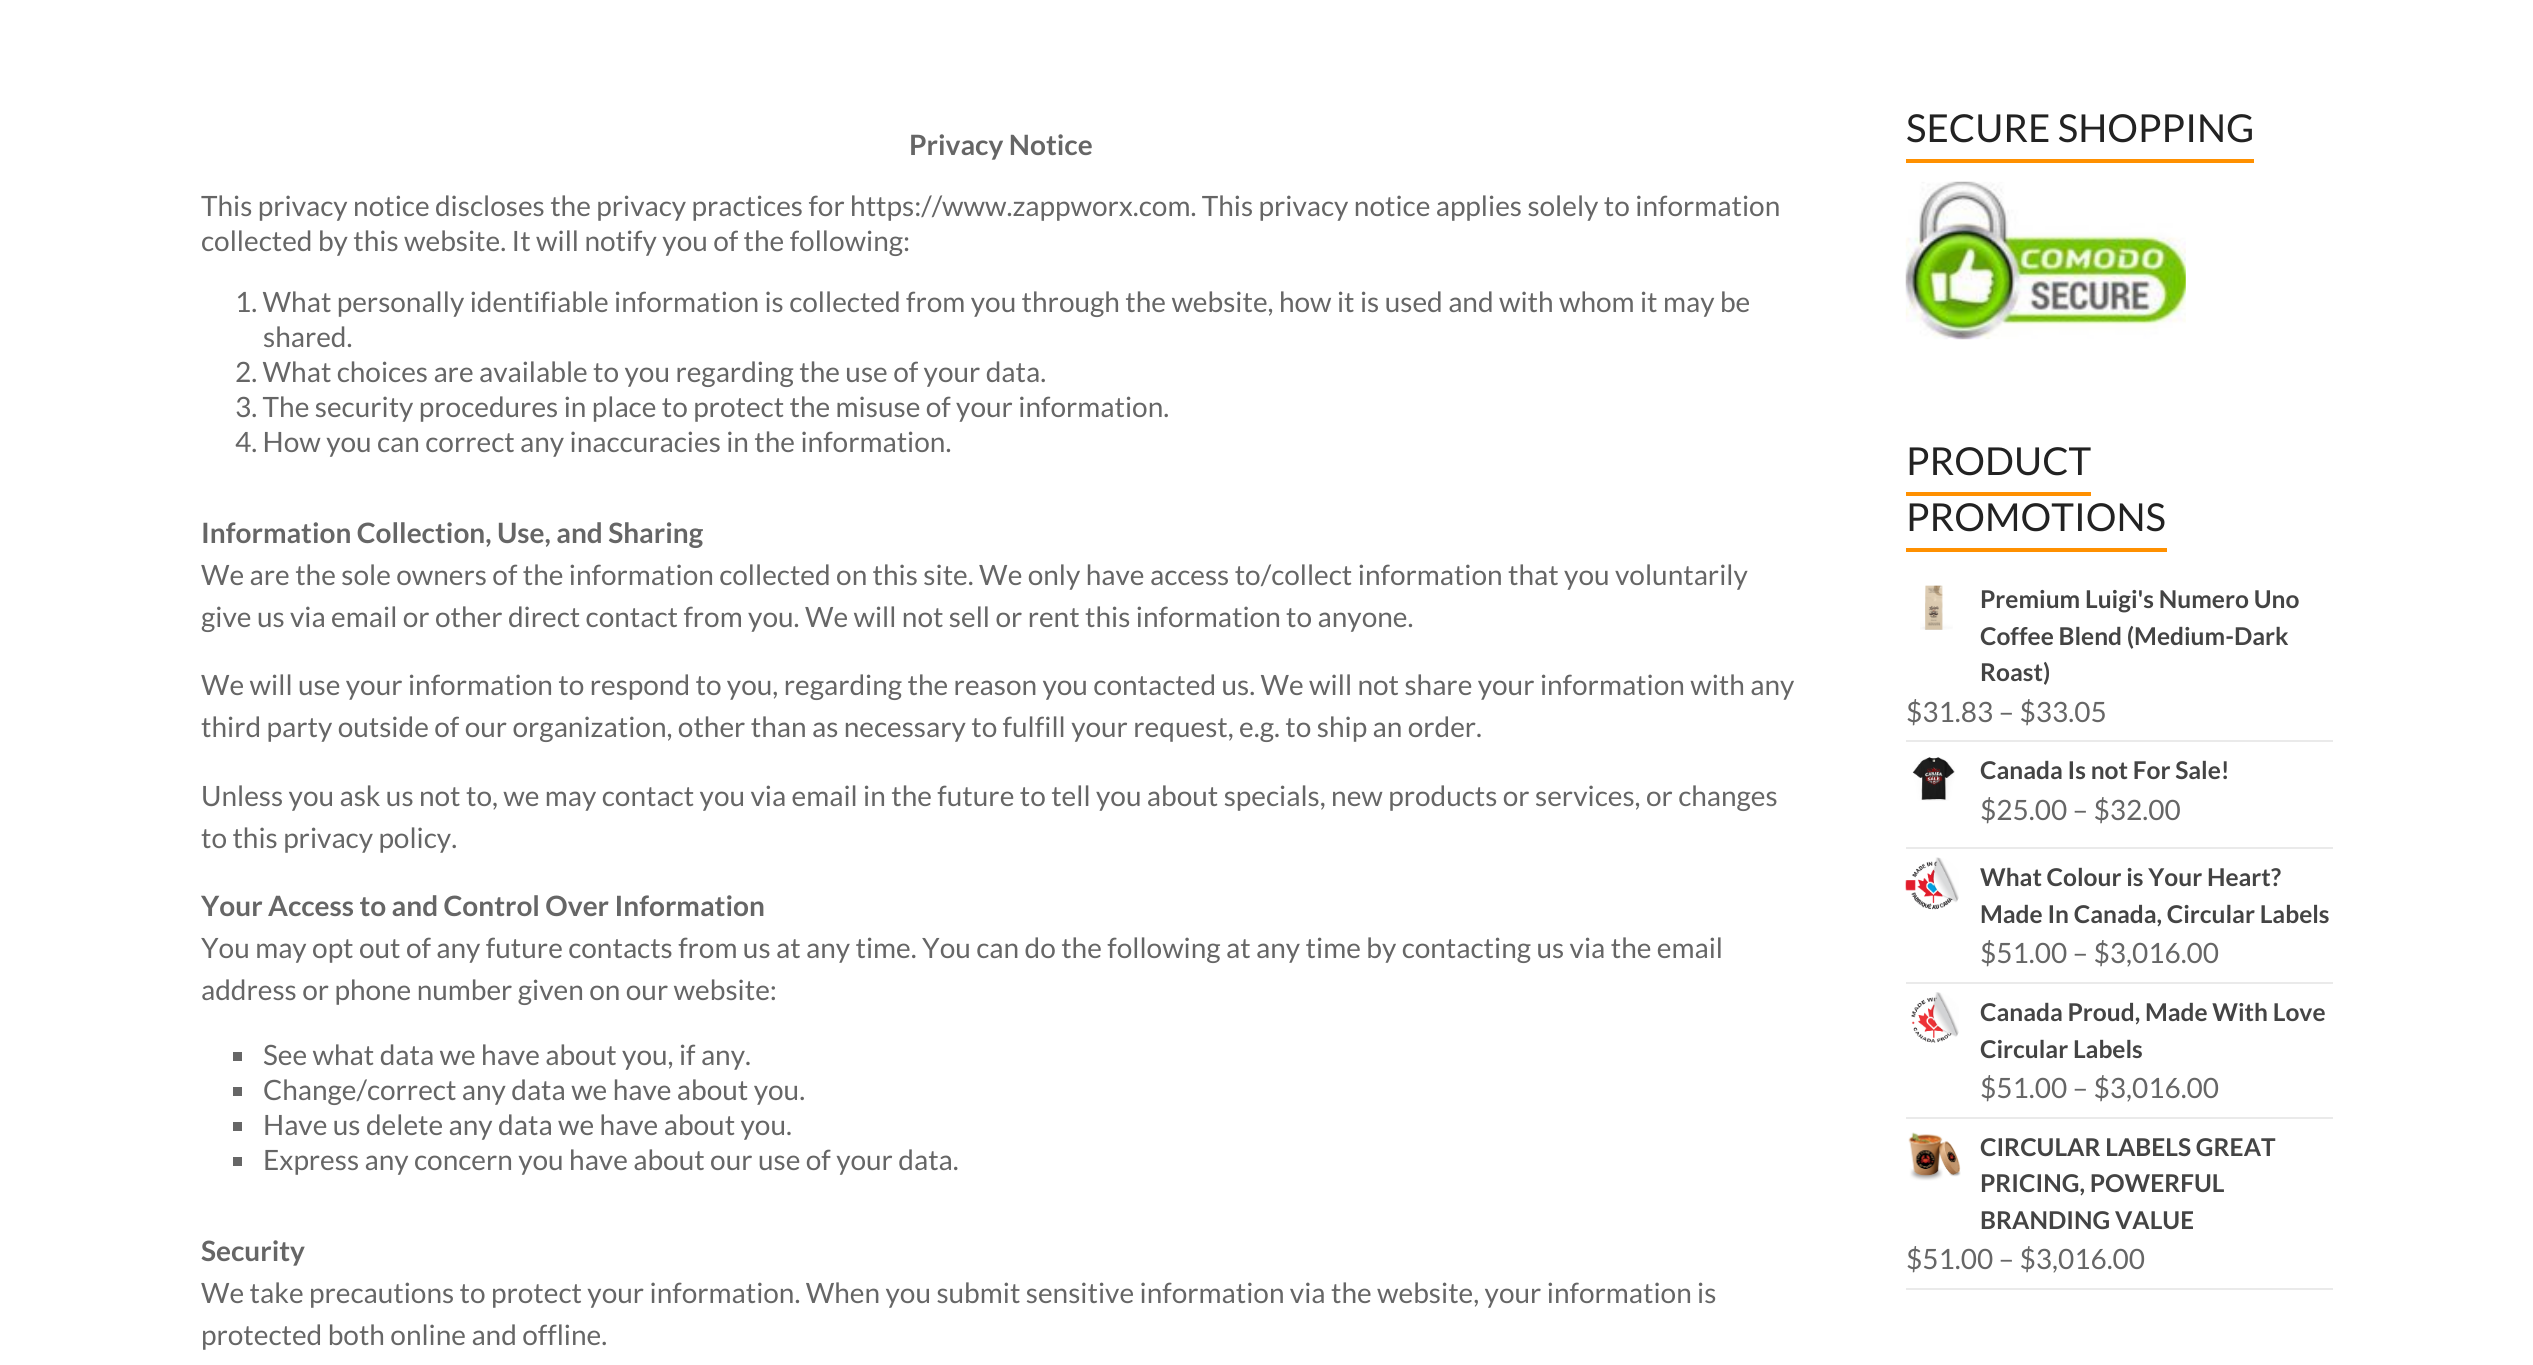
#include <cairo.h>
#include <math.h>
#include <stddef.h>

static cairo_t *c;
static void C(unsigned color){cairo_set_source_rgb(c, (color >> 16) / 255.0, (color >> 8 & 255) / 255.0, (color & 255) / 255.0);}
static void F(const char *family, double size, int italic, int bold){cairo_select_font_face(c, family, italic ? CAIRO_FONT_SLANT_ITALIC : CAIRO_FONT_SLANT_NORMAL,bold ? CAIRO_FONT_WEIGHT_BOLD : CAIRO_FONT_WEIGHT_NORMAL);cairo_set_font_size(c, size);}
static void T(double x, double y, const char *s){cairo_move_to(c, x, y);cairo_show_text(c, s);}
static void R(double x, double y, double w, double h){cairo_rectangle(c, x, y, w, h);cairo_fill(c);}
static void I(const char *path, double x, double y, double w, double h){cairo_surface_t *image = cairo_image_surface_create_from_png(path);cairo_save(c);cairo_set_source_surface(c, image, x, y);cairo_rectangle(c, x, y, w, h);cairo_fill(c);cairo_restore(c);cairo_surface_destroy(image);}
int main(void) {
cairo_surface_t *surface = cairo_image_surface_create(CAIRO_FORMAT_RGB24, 2533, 1365);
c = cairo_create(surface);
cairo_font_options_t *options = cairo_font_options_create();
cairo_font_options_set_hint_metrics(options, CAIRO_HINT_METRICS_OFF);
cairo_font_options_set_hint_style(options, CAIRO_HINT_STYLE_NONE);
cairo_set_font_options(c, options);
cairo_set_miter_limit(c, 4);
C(0xffffff);
cairo_paint(c);
F("Lato",28,0,1);
C(0x666666);
T(909,155,"Privacy Notice");
F("Lato",28,0,0);
T(201,216,"This privacy notice discloses the privacy practices for https://www.zappworx.com. This privacy notice applies solely to information");
T(201,251,"collected by this website. It will notify you of the following:");
T(235,312,"1. What personally identifiable information is collected from you through the website, how it is used and with whom it may be");
T(263,347,"shared.");
T(235,382,"2. What choices are available to you regarding the use of your data.");
T(235,417,"3. The security procedures in place to protect the misuse of your information.");
T(235,452,"4. How you can correct any inaccuracies in the information.");
F("Lato",28,0,1);
T(201,543,"Information Collection, Use, and Sharing");
F("Lato",28,0,0);
T(201,585,"We are the sole owners of the information collected on this site. We only have access to/collect information that you voluntarily");
T(201,627,"give us via email or other direct contact from you. We will not sell or rent this information to anyone.");
T(201,695,"We will use your information to respond to you, regarding the reason you contacted us. We will not share your information with any");
T(201,737,"third party outside of our organization, other than as necessary to fulfill your request, e.g. to ship an order.");
T(201,806,"Unless you ask us not to, we may contact you via email in the future to tell you about specials, new products or services, or changes");
T(201,848,"to this privacy policy.");
F("Lato",28,0,1);
T(201,916,"Your Access to and Control Over Information");
F("Lato",28,0,0);
T(201,958,"You may opt out of any future contacts from us at any time. You can do the following at any time by contacting us via the email");
T(201,1000,"address or phone number given on our website:");
R(233,1052,9,9);
T(263,1065,"See what data we have about you, if any.");
R(233,1087,9,9);
T(263,1100,"Change/correct any data we have about you.");
R(233,1122,9,9);
T(263,1135,"Have us delete any data we have about you.");
R(233,1157,9,9);
T(263,1170,"Express any concern you have about our use of your data.");
F("Lato",28,0,1);
T(201,1261,"Security");
F("Lato",28,0,0);
T(201,1303,"We take precautions to protect your information. When you submit sensitive information via the website, your information is");
T(201,1345,"protected both online and offline.");
F("Lato",38.5,0,0);
C(0x222222);
T(1906,142,"SECURE SHOPPING");
C(0xff9000);
R(1906,159,348,4);
I("1.png",1905,181,281,159);
C(0x222222);
T(1906,475,"PRODUCT");
T(1906,531,"PROMOTIONS");
C(0xff9000);
R(1906,492,185,4);
R(1906,548,261,4);
C(0xeaeaea);
R(1906,740,427,2);
I("2.png",1920,585,33,45);
F("Lato",24.5,0,1);
C(0x444444);
T(1980,608,"Premium Luigi's Numero Uno");
T(1980,645,"Coffee Blend (Medium-Dark");
T(1980,681,"Roast)");
F("Lato",28,0,0);
C(0x666666);
T(1906,722,"$31.83 – $33.05");
C(0xeaeaea);
R(1906,847,427,2);
I("3.png",1912,757,43,44);
F("Lato",24.5,0,1);
C(0x444444);
T(1980,779,"Canada Is not For Sale!");
F("Lato",28,0,0);
C(0x666666);
T(1980,820,"$25.00 – $32.00");
C(0xeaeaea);
R(1906,982,427,2);
I("4.png",1905,857,54,53);
F("Lato",24.5,0,1);
C(0x444444);
T(1980,886,"What Colour is Your Heart?");
T(1980,923,"Made In Canada, Circular Labels");
F("Lato",28,0,0);
C(0x666666);
T(1980,963,"$51.00 – $3,016.00");
C(0xeaeaea);
R(1906,1117,427,2);
I("5.png",1911,992,48,51);
F("Lato",24.5,0,1);
C(0x444444);
T(1980,1021,"Canada Proud, Made With Love");
T(1980,1058,"Circular Labels");
F("Lato",28,0,0);
C(0x666666);
T(1980,1098,"$51.00 – $3,016.00");
C(0xeaeaea);
R(1906,1288,427,2);
I("6.png",1908,1132,53,49);
F("Lato",24.5,0,1);
C(0x444444);
T(1980,1156,"CIRCULAR LABELS GREAT");
T(1980,1192,"PRICING, POWERFUL");
T(1980,1229,"BRANDING VALUE");
F("Lato",28,0,0);
C(0x666666);
T(1906,1269,"$51.00 – $3,016.00");
cairo_surface_write_to_png(surface, "o.png");
cairo_font_options_destroy(options);
cairo_destroy(c);
cairo_surface_destroy(surface);
return 0;
}
